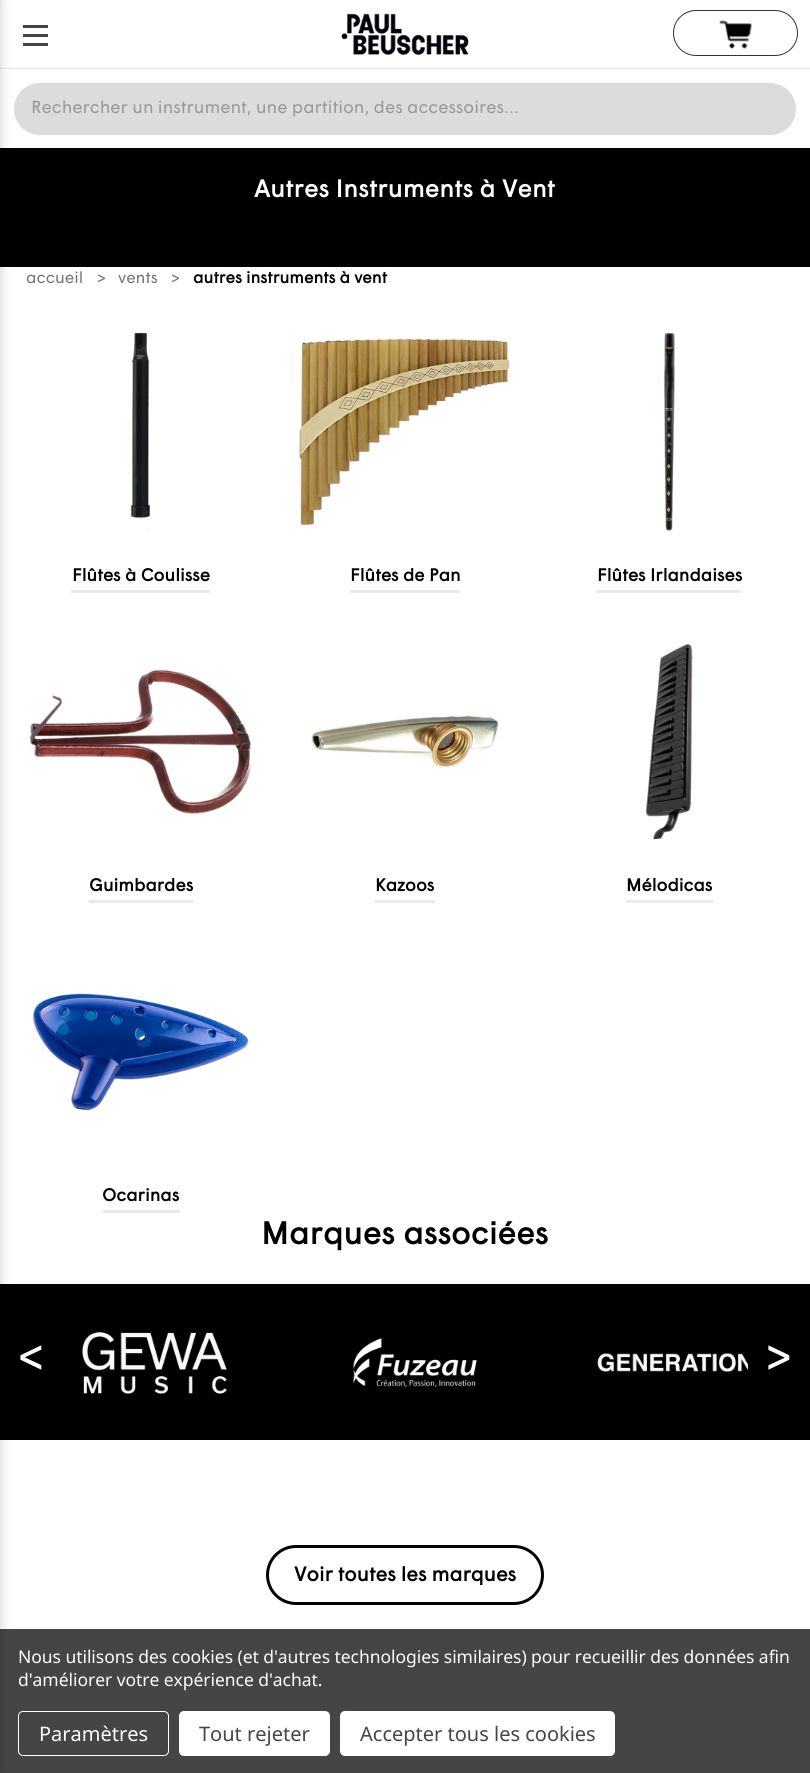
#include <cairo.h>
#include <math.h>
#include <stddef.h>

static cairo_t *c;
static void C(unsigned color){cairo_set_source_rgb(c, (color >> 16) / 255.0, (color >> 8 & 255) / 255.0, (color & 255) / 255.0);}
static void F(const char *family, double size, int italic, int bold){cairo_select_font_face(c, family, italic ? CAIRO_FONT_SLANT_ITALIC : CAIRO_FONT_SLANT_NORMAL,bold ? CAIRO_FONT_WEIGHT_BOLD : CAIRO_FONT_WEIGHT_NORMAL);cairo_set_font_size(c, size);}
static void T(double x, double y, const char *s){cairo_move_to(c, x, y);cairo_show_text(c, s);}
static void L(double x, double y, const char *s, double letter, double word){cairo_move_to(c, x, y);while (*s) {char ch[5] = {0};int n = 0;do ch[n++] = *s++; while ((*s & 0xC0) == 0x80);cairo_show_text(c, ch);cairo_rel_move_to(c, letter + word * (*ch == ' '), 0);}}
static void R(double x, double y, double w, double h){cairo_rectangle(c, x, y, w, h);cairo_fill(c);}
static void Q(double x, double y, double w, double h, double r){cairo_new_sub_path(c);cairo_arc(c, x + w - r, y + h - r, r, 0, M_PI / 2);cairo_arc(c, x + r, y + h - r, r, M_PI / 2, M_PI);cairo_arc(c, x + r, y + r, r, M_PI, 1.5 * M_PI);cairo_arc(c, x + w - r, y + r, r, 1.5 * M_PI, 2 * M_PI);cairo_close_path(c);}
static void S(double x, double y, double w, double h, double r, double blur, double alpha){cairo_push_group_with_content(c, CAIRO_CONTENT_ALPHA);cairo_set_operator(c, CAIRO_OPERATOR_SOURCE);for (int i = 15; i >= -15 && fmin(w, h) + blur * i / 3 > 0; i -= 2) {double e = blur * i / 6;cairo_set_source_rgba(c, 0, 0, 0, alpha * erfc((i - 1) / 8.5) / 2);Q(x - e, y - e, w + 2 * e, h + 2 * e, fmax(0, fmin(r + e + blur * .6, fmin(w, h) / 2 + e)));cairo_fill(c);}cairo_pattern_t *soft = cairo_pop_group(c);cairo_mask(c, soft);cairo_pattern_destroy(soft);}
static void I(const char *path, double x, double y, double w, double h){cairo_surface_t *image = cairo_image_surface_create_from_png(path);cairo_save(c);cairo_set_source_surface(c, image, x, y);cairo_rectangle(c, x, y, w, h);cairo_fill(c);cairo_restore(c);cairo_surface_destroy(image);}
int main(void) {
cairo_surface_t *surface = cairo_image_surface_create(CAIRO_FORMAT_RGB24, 810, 1773);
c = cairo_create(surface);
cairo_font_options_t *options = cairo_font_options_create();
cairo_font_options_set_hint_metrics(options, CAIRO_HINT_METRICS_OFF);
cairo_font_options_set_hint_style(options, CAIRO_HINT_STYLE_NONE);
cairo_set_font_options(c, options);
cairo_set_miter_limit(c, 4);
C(0xffffff);
cairo_paint(c);
C(0xe5e5e5);
R(0,68,810,1);
C(0xdcdcdc);
Q(14,83,782,52,26);
cairo_fill(c);
C(0x000000);
R(0,148,810,119);
R(0,1284,810,156);
C(0x454545);
R(0,1629,810,144);
Q(18.5,1711.5,150,44,4.5);
C(0xffffff);
cairo_set_line_width(c,1);
cairo_stroke(c);
C(0x000000);
S(-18,0,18,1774,0,6,.2);
C(0x444444);
R(23,34,25,3);
R(23,25,25,3);
R(23,43,25,3);
I("1.png",341,13,128,42);
Q(673.5,10.5,124,45,22.5);
C(0x333333);
cairo_stroke(c);
I("2.png",719,20,33,29);
F("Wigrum",17.5,0,0);
C(0x999999);
T(31,113,"Rechercher un instrument, une partition, des accessoires...");
F("Wigrum",24.25,0,1);
C(0xffffff);
L(254,197,"Autres Instruments à Vent",.3,0);
F("Wigrum",16.25,0,0);
C(0x757575);
T(26,283,"accueil");
T(97,284,">");
T(118,283,"vents");
T(171,284,">");
F("Wigrum",16.25,0,1);
C(0x000000);
T(193,283,"autres instruments à vent");
I("3.png",130,332,20,199);
C(0xeaeaea);
R(71,590,139,3);
F("Wigrum",17.5,0,1);
C(0x000000);
T(72,581,"Flûtes à Coulisse");
I("4.png",299,339,211,186);
C(0xeaeaea);
R(350,590,110,3);
C(0x000000);
T(350,581,"Flûtes de Pan");
I("5.png",663,332,12,199);
C(0xeaeaea);
R(596,590,145,3);
C(0x000000);
T(597,581,"Flûtes Irlandaises");
I("6.png",30,669,222,145);
C(0xeaeaea);
R(89,900,104,3);
C(0x000000);
T(89,891,"Guimbardes");
I("7.png",311,715,188,53);
C(0xeaeaea);
R(375,900,60,3);
C(0x000000);
T(375,891,"Kazoos");
I("8.png",645,644,48,196);
C(0xeaeaea);
R(626,900,87,3);
C(0x000000);
T(626,891,"Mélodicas");
I("9.png",32,993,217,118);
C(0xeaeaea);
R(103,1210,77,3);
C(0x000000);
T(102,1201,"Ocarinas");
F("Wigrum",31.25,0,1);
L(261,1244,"Marques associées",.3,0);
I("10.png",82,1332,145,62);
I("11.png",353,1338,124,50);
I("12.png",597,1353,151,19);
F("Wigrum",50,0,0);
C(0xffffff);
T(17,1375,"<");
T(765,1375,">");
Q(267.5,1546.5,275,57,28.5);
C(0x000000);
cairo_set_line_width(c,3);
cairo_stroke(c);
F("Wigrum",20,0,1);
T(294,1581,"Voir toutes les marques");
F("Noto Sans",17.5,0,0);
C(0xffffff);
L(18,1663,"Nous utilisons des cookies (et d'autres technologies similaires) pour recueillir des données afin",-.05,0);
L(18,1686,"d'améliorer votre expérience d'achat.",-.05,0);
F("Noto Sans",20,0,0);
T(39,1741,"Paramètres");
Q(179,1711,151,45,5);
cairo_fill(c);
C(0x454545);
T(199,1741,"Tout rejeter");
C(0xffffff);
Q(340,1711,275,45,5);
cairo_fill(c);
C(0x454545);
T(360,1741,"Accepter tous les cookies");
cairo_surface_write_to_png(surface, "o.png");
cairo_font_options_destroy(options);
cairo_destroy(c);
cairo_surface_destroy(surface);
return 0;
}
